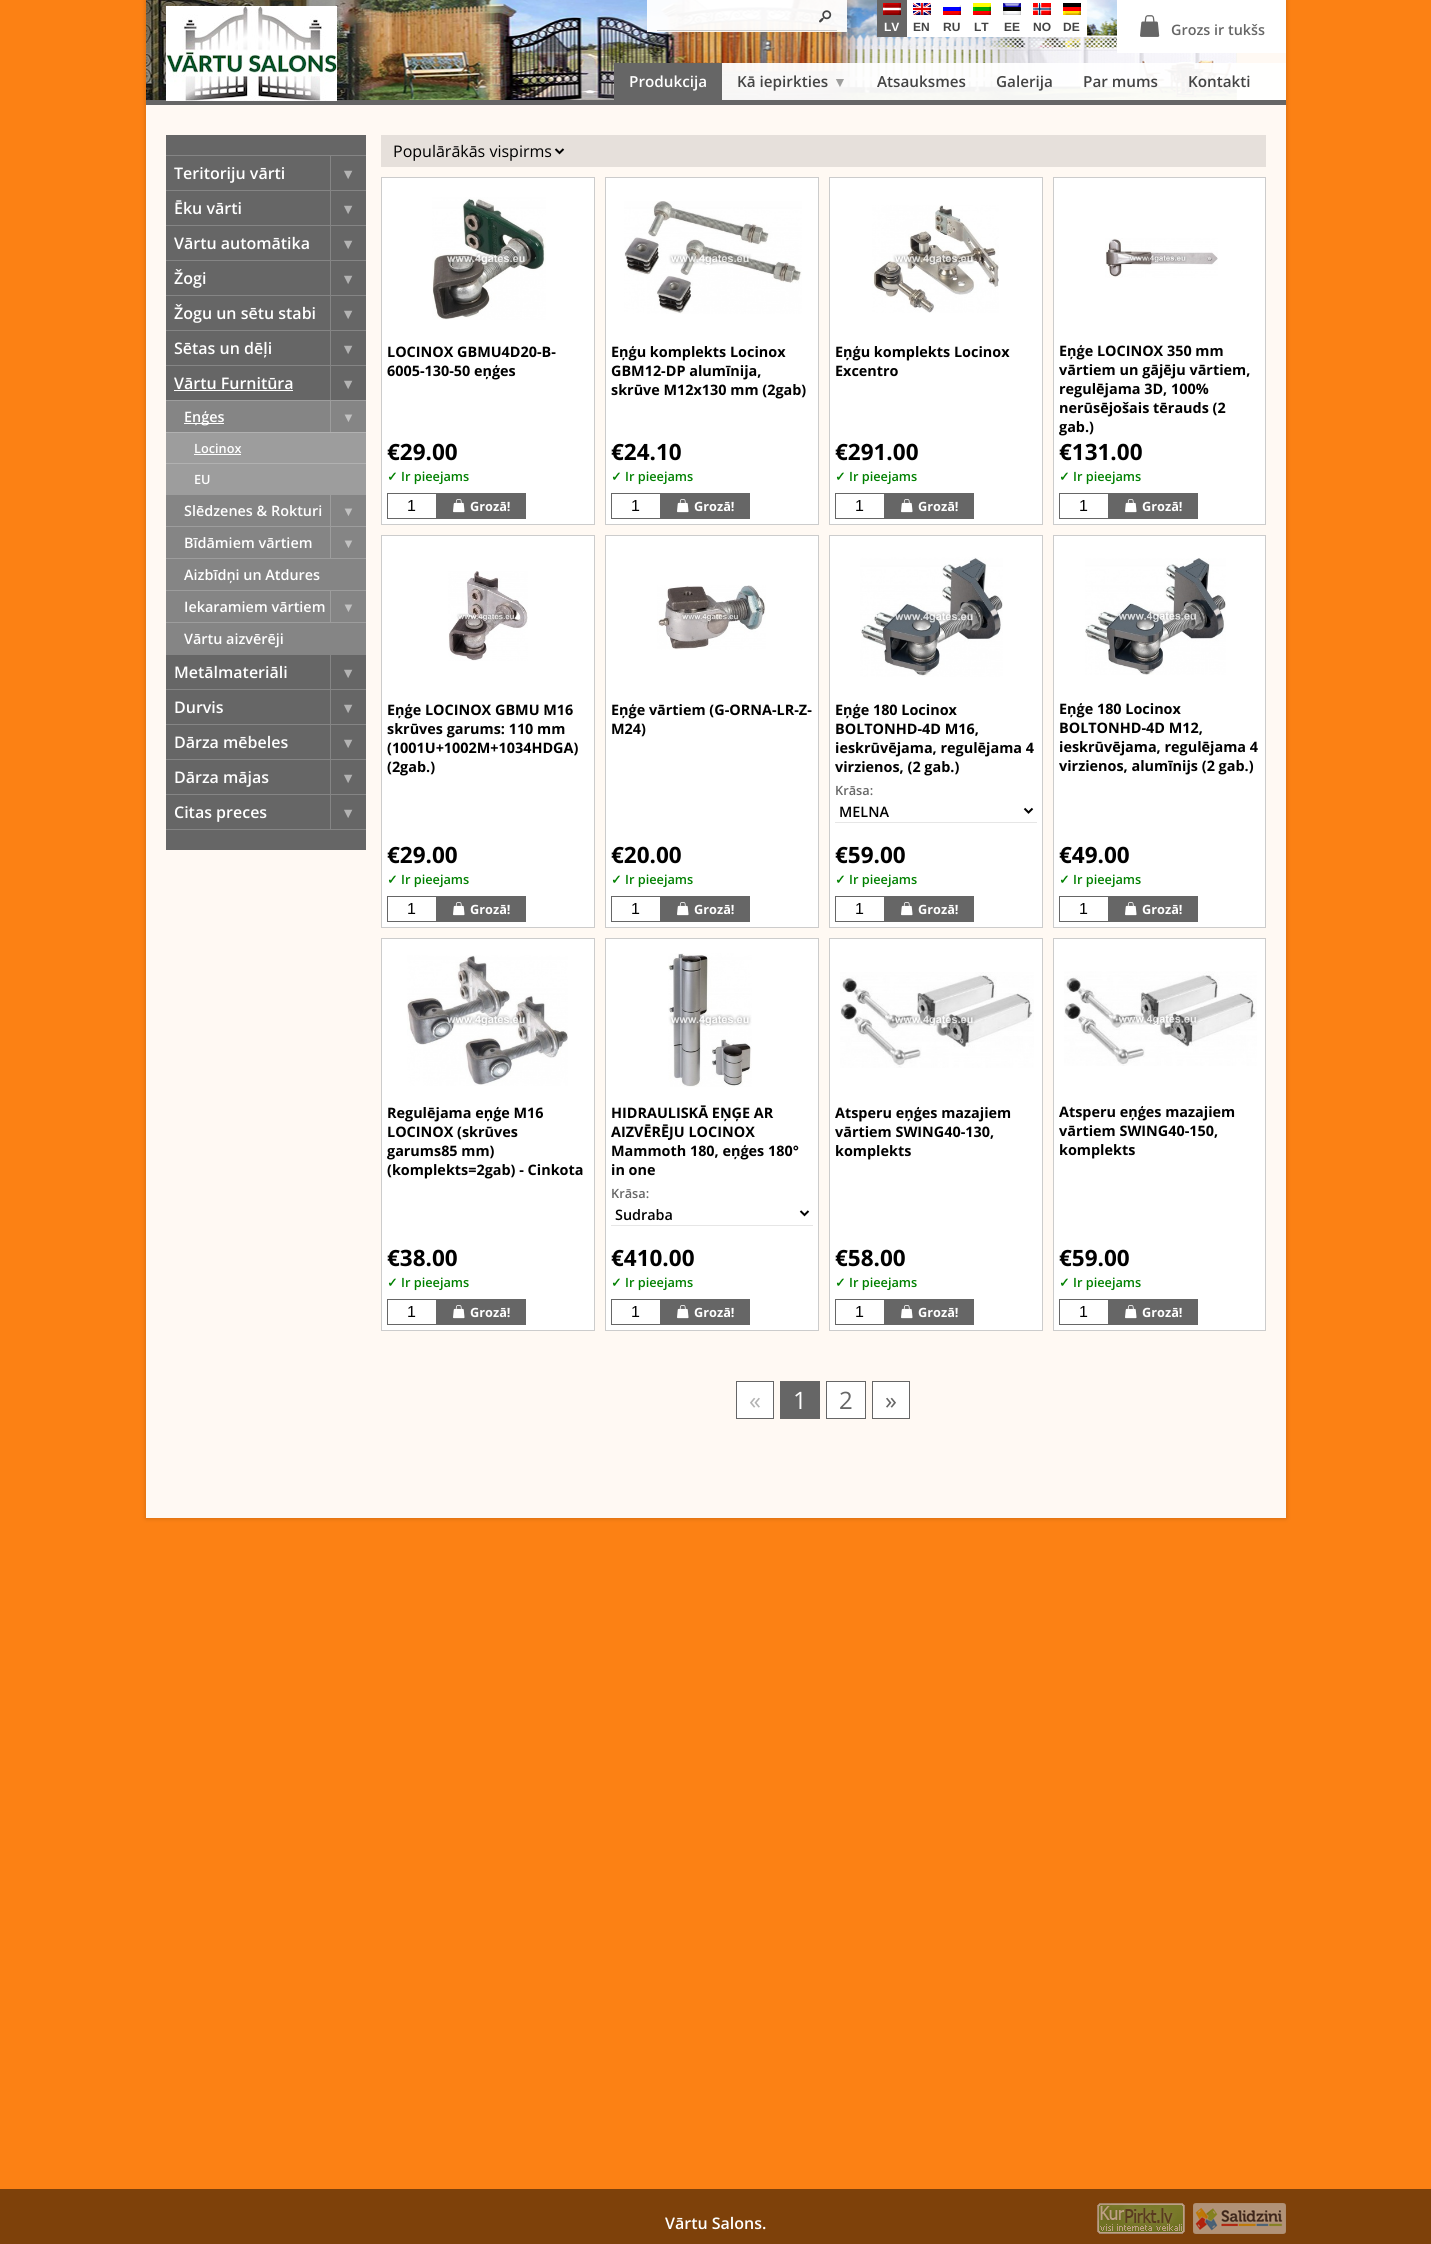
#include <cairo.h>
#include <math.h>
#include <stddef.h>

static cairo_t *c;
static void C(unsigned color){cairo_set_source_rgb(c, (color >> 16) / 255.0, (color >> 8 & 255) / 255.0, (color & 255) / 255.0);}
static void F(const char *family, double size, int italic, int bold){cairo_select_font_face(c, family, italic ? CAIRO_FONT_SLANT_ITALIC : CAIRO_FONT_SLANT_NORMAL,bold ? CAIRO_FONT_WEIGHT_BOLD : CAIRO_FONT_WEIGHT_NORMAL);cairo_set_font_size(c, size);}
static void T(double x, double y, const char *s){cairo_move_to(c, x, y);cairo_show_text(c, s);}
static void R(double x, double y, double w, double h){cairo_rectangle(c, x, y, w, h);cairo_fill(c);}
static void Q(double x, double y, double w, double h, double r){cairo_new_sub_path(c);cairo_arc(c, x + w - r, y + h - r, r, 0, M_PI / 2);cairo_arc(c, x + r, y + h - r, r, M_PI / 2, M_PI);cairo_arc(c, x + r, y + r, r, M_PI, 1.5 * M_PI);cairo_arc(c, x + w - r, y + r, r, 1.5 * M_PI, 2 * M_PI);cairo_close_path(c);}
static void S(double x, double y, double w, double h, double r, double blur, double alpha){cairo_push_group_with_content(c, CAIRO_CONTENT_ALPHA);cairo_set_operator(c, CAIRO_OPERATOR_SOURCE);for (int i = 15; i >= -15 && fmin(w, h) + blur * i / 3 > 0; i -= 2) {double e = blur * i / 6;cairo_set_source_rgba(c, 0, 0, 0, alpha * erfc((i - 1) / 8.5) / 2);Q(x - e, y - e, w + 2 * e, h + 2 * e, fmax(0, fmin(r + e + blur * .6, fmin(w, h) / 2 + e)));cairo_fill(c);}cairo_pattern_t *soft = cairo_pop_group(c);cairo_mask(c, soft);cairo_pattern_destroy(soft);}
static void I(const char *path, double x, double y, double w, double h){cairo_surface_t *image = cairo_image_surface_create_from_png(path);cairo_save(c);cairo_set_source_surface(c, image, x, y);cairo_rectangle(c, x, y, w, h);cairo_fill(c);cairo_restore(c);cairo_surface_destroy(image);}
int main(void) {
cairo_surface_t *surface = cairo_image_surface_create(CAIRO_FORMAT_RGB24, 1431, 2244);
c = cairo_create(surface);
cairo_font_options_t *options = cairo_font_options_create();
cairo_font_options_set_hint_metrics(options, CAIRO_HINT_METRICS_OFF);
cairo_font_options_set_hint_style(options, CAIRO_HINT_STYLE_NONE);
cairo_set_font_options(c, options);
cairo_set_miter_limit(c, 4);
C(0xfc8114);
cairo_paint(c);
C(0x000000);
S(146,0,1140,1518,0,2.5,.2);
C(0xfff9f3);
R(146,53,1140,1465);
I("1.png",146,0,1091,100);
C(0x666666);
R(146,100,1140,5);
I("2.png",166,6,171,95);
cairo_set_source_rgba(c,1,1,1,0.95);
R(647,0,200,32);
cairo_set_source_rgba(c,0.733,0.733,0.733,0.75);
R(657,30,180,1);
I("3.png",819,10,13,13);
C(0x666666);
R(877,0,30,37);
I("4.png",883,3,18,12);
F("Liberation Sans",12,0,1);
C(0xffffff);
T(884,31,"LV");
R(907,0,180,37);
I("5.png",913,3,18,12);
C(0x444444);
T(913,31,"EN");
I("6.png",943,5,18,10);
T(943,31,"RU");
I("7.png",973,3,18,12);
T(974,31,"LT");
I("8.png",1003,3,18,12);
T(1004,31,"EE");
I("9.png",1033,3,18,12);
T(1033,31,"NO");
I("10.png",1063,3,18,12);
T(1063,31,"DE");
C(0xffffff);
R(1117,0,169,53);
I("11.png",1140,15,20,22);
F("Open Sans SemiBold",14.4,0,0);
C(0x666666);
T(1171,35,"Grozs ir tukšs");
cairo_set_source_rgba(c,1,1,1,0.95);
R(722,63,564,37);
C(0x666666);
R(614,63,108,37);
F("Open Sans SemiBold",15.25,0,0);
C(0xffffff);
T(629,87,"Produkcija");
C(0x444444);
T(737,87,"Kā iepirkties");
F("Liberation Sans",14,0,1);
C(0x9e9e9d);
T(833,87,"▼");
F("Open Sans SemiBold",15.25,0,0);
C(0x444444);
T(877,87,"Atsauksmes");
T(996,87,"Galerija");
T(1083,87,"Par mums");
T(1188,87,"Kontakti");
C(0x666666);
R(166,135,200,715);
C(0x858585);
R(166,829,200,1);
R(166,155,200,1);
F("Open Sans SemiBold",16,0,0);
C(0xffffff);
T(174,179,"Teritoriju vārti");
C(0x858585);
R(330,156,1,34);
F("Liberation Sans",14.4,0,1);
C(0xb3b3b3);
T(341,179,"▼");
C(0x858585);
R(166,190,200,1);
F("Open Sans SemiBold",16,0,0);
C(0xffffff);
T(174,214,"Ēku vārti");
C(0x858585);
R(330,191,1,34);
F("Liberation Sans",14.4,0,1);
C(0xb3b3b3);
T(341,214,"▼");
C(0x858585);
R(166,225,200,1);
F("Open Sans SemiBold",16,0,0);
C(0xffffff);
T(174,249,"Vārtu automātika");
C(0x858585);
R(330,226,1,34);
F("Liberation Sans",14.4,0,1);
C(0xb3b3b3);
T(341,249,"▼");
C(0x858585);
R(166,260,200,1);
F("Open Sans SemiBold",16,0,0);
C(0xffffff);
T(174,284,"Žogi");
C(0x858585);
R(330,261,1,34);
F("Liberation Sans",14.4,0,1);
C(0xb3b3b3);
T(341,284,"▼");
C(0x858585);
R(166,295,200,1);
F("Open Sans SemiBold",16,0,0);
C(0xffffff);
T(174,319,"Žogu un sētu stabi");
C(0x858585);
R(330,296,1,34);
F("Liberation Sans",14.4,0,1);
C(0xb3b3b3);
T(341,319,"▼");
C(0x858585);
R(166,330,200,1);
F("Open Sans SemiBold",16,0,0);
C(0xffffff);
T(174,354,"Sētas un dēļi");
C(0x858585);
R(330,331,1,34);
F("Liberation Sans",14.4,0,1);
C(0xb3b3b3);
T(341,354,"▼");
C(0x858585);
R(166,365,200,1);
F("Open Sans SemiBold",16,0,0);
C(0xffffff);
T(174,389,"Vārtu Furnitūra");
R(174,390,119,1);
C(0x858585);
R(330,366,1,34);
F("Liberation Sans",14.4,0,1);
C(0xb3b3b3);
T(341,389,"▼");
C(0x858585);
R(166,401,200,254);
C(0x9d9d9d);
R(166,400,200,1);
C(0xffffff);
R(184,423,40,1);
F("Open Sans SemiBold",14.4,0,0);
T(184,422,"Eņģes");
C(0x9d9d9d);
R(330,401,1,31);
F("Liberation Sans",13,0,1);
C(0xc2c2c2);
T(342,422,"▼");
C(0x9d9d9d);
R(166,433,200,62);
C(0xb1b1b1);
R(166,432,200,1);
F("Open Sans SemiBold",12.75,0,0);
C(0xffffff);
T(194,453,"Locinox");
R(194,454,47,1);
C(0xb1b1b1);
R(166,463,200,1);
C(0xffffff);
T(194,484,"EU");
F("Open Sans SemiBold",14.4,0,0);
T(184,516,"Slēdzenes & Rokturi");
C(0x9d9d9d);
R(330,495,1,31);
F("Liberation Sans",13,0,1);
C(0xc2c2c2);
T(342,516,"▼");
C(0x9d9d9d);
R(166,526,200,1);
F("Open Sans SemiBold",14.4,0,0);
C(0xffffff);
T(184,548,"Bīdāmiem vārtiem");
C(0x9d9d9d);
R(330,527,1,31);
F("Liberation Sans",13,0,1);
C(0xc2c2c2);
T(342,548,"▼");
C(0x9d9d9d);
R(166,558,200,1);
F("Open Sans SemiBold",14.4,0,0);
C(0xffffff);
T(184,580,"Aizbīdņi un Atdures");
C(0x9d9d9d);
R(166,590,200,1);
C(0xffffff);
T(184,612,"Iekaramiem vārtiem");
C(0x9d9d9d);
R(330,591,1,31);
F("Liberation Sans",13,0,1);
C(0xc2c2c2);
T(342,612,"▼");
C(0x9d9d9d);
R(166,622,200,1);
F("Open Sans SemiBold",14.4,0,0);
C(0xffffff);
T(184,644,"Vārtu aizvērēji");
F("Open Sans SemiBold",16,0,0);
T(174,678,"Metālmateriāli");
C(0x858585);
R(330,655,1,34);
F("Liberation Sans",14.4,0,1);
C(0xb3b3b3);
T(341,678,"▼");
C(0x858585);
R(166,689,200,1);
F("Open Sans SemiBold",16,0,0);
C(0xffffff);
T(174,713,"Durvis");
C(0x858585);
R(330,690,1,34);
F("Liberation Sans",14.4,0,1);
C(0xb3b3b3);
T(341,713,"▼");
C(0x858585);
R(166,724,200,1);
F("Open Sans SemiBold",16,0,0);
C(0xffffff);
T(174,748,"Dārza mēbeles");
C(0x858585);
R(330,725,1,34);
F("Liberation Sans",14.4,0,1);
C(0xb3b3b3);
T(341,748,"▼");
C(0x858585);
R(166,759,200,1);
F("Open Sans SemiBold",16,0,0);
C(0xffffff);
T(174,783,"Dārza mājas");
C(0x858585);
R(330,760,1,34);
F("Liberation Sans",14.4,0,1);
C(0xb3b3b3);
T(341,783,"▼");
C(0x858585);
R(166,794,200,1);
F("Open Sans SemiBold",16,0,0);
C(0xffffff);
T(174,818,"Citas preces");
C(0x858585);
R(330,795,1,34);
F("Liberation Sans",14.4,0,1);
C(0xb3b3b3);
T(341,818,"▼");
C(0xe6e0db);
R(381,135,885,32);
cairo_new_path(c);
cairo_move_to(c,555.5,149);
cairo_line_to(c,559.5,153);
cairo_line_to(c,563.5,149);
C(0x000000);
cairo_stroke(c);
F("Open Sans",16,0,0);
T(393,157,"Populārākās vispirms");
C(0xffffff);
cairo_rectangle(c,381.5,177.5,213,347);
cairo_fill_preserve(c);
C(0xcccccc);
cairo_set_line_width(c,1);
cairo_stroke(c);
I("12.png",432,197,114,123);
F("Open Sans",14.4,0,1);
C(0x000000);
T(387,357,"LOCINOX GBMU4D20-B-");
T(387,376,"6005-130-50 eņģes");
F("Open Sans",22.5,0,1);
T(387,460,"€29.00");
F("DejaVu Sans",12.75,0,1);
C(0x008000);
T(387,481,"✓");
F("Open Sans SemiBold",12.75,0,0);
T(401,481,"Ir pieejams");
cairo_rectangle(c,387.5,493.5,49,25);
C(0x666666);
cairo_stroke(c);
F("Liberation Sans",16,0,0);
C(0x000000);
T(407,511,"1");
C(0x666666);
R(437,493,89,26);
I("13.png",453,499,12,14);
F("Open Sans",12.75,0,1);
C(0xffffff);
T(470,511,"Grozā!");
cairo_rectangle(c,605.5,177.5,213,347);
cairo_fill_preserve(c);
C(0xcccccc);
cairo_stroke(c);
I("14.png",624,201,178,113);
F("Open Sans",14.4,0,1);
C(0x000000);
T(611,357,"Eņģu komplekts Locinox");
T(611,376,"GBM12-DP alumīnija,");
T(611,395,"skrūve M12x130 mm (2gab)");
F("Open Sans",22.5,0,1);
T(611,460,"€24.10");
F("DejaVu Sans",12.75,0,1);
C(0x008000);
T(611,481,"✓");
F("Open Sans SemiBold",12.75,0,0);
T(625,481,"Ir pieejams");
cairo_rectangle(c,611.5,493.5,49,25);
C(0x666666);
cairo_stroke(c);
F("Liberation Sans",16,0,0);
C(0x000000);
T(631,511,"1");
C(0x666666);
R(661,493,89,26);
I("13.png",677,499,12,14);
F("Open Sans",12.75,0,1);
C(0xffffff);
T(694,511,"Grozā!");
cairo_rectangle(c,829.5,177.5,213,347);
cairo_fill_preserve(c);
C(0xcccccc);
cairo_stroke(c);
I("15.png",872,205,127,108);
F("Open Sans",14.4,0,1);
C(0x000000);
T(835,357,"Eņģu komplekts Locinox");
T(835,376,"Excentro");
F("Open Sans",22.5,0,1);
T(835,460,"€291.00");
F("DejaVu Sans",12.75,0,1);
C(0x008000);
T(835,481,"✓");
F("Open Sans SemiBold",12.75,0,0);
T(849,481,"Ir pieejams");
cairo_rectangle(c,835.5,493.5,49,25);
C(0x666666);
cairo_stroke(c);
F("Liberation Sans",16,0,0);
C(0x000000);
T(855,511,"1");
C(0x666666);
R(885,493,89,26);
I("13.png",901,499,12,14);
F("Open Sans",12.75,0,1);
C(0xffffff);
T(918,511,"Grozā!");
cairo_rectangle(c,1053.5,177.5,212,347);
cairo_fill_preserve(c);
C(0xcccccc);
cairo_stroke(c);
I("16.png",1105,238,113,40);
F("Open Sans",14.4,0,1);
C(0x000000);
T(1059,356,"Eņģe LOCINOX 350 mm");
T(1059,375,"vārtiem un gājēju vārtiem,");
T(1059,394,"regulējama 3D, 100%");
T(1059,413,"nerūsējošais tērauds (2");
T(1059,432,"gab.)");
F("Open Sans",22.5,0,1);
T(1059,460,"€131.00");
F("DejaVu Sans",12.75,0,1);
C(0x008000);
T(1059,481,"✓");
F("Open Sans SemiBold",12.75,0,0);
T(1073,481,"Ir pieejams");
cairo_rectangle(c,1059.5,493.5,49,25);
C(0x666666);
cairo_stroke(c);
F("Liberation Sans",16,0,0);
C(0x000000);
T(1079,511,"1");
C(0x666666);
R(1109,493,89,26);
I("13.png",1125,499,12,14);
F("Open Sans",12.75,0,1);
C(0xffffff);
T(1142,511,"Grozā!");
cairo_rectangle(c,381.5,535.5,213,392);
cairo_fill_preserve(c);
C(0xcccccc);
cairo_stroke(c);
I("17.png",448,571,80,90);
F("Open Sans",14.4,0,1);
C(0x000000);
T(387,715,"Eņģe LOCINOX GBMU M16");
T(387,734,"skrūves garums: 110 mm");
T(387,753,"(1001U+1002M+1034HDGA)");
T(387,772,"(2gab.)");
F("Open Sans",22.5,0,1);
T(387,863,"€29.00");
F("DejaVu Sans",12.75,0,1);
C(0x008000);
T(387,884,"✓");
F("Open Sans SemiBold",12.75,0,0);
T(401,884,"Ir pieejams");
cairo_rectangle(c,387.5,896.5,49,25);
C(0x666666);
cairo_stroke(c);
F("Liberation Sans",16,0,0);
C(0x000000);
T(407,914,"1");
C(0x666666);
R(437,896,89,26);
I("13.png",453,902,12,14);
F("Open Sans",12.75,0,1);
C(0xffffff);
T(470,914,"Grozā!");
cairo_rectangle(c,605.5,535.5,213,392);
cairo_fill_preserve(c);
C(0xcccccc);
cairo_stroke(c);
I("18.png",657,585,109,65);
F("Open Sans",14.4,0,1);
C(0x000000);
T(611,715,"Eņģe vārtiem (G-ORNA-LR-Z-");
T(611,734,"M24)");
F("Open Sans",22.5,0,1);
T(611,863,"€20.00");
F("DejaVu Sans",12.75,0,1);
C(0x008000);
T(611,884,"✓");
F("Open Sans SemiBold",12.75,0,0);
T(625,884,"Ir pieejams");
cairo_rectangle(c,611.5,896.5,49,25);
C(0x666666);
cairo_stroke(c);
F("Liberation Sans",16,0,0);
C(0x000000);
T(631,914,"1");
C(0x666666);
R(661,896,89,26);
I("13.png",677,902,12,14);
F("Open Sans",12.75,0,1);
C(0xffffff);
T(694,914,"Grozā!");
cairo_rectangle(c,829.5,535.5,213,392);
cairo_fill_preserve(c);
C(0xcccccc);
cairo_stroke(c);
I("19.png",860,557,143,120);
F("Open Sans",14.4,0,1);
C(0x000000);
T(835,715,"Eņģe 180 Locinox");
T(835,734,"BOLTONHD-4D M16,");
T(835,753,"ieskrūvējama, regulējama 4");
T(835,772,"virzienos, (2 gab.)");
C(0xe6e6e6);
R(835,822,202,1);
F("Open Sans SemiBold",12.75,0,0);
C(0x666666);
T(835,795,"Krāsa:");
cairo_new_path(c);
cairo_move_to(c,1024.5,808.5);
cairo_line_to(c,1028.5,812.5);
cairo_line_to(c,1032.5,808.5);
C(0x000000);
cairo_set_line_width(c,2);
cairo_stroke(c);
F("Open Sans SemiBold",14.4,0,0);
T(839,817,"MELNA");
F("Open Sans",22.5,0,1);
T(835,863,"€59.00");
F("DejaVu Sans",12.75,0,1);
C(0x008000);
T(835,884,"✓");
F("Open Sans SemiBold",12.75,0,0);
T(849,884,"Ir pieejams");
cairo_rectangle(c,835.5,896.5,49,25);
C(0x666666);
cairo_set_line_width(c,1);
cairo_stroke(c);
F("Liberation Sans",16,0,0);
C(0x000000);
T(855,914,"1");
C(0x666666);
R(885,896,89,26);
I("13.png",901,902,12,14);
F("Open Sans",12.75,0,1);
C(0xffffff);
T(918,914,"Grozā!");
cairo_rectangle(c,1053.5,535.5,212,392);
cairo_fill_preserve(c);
C(0xcccccc);
cairo_stroke(c);
I("20.png",1085,558,141,117);
F("Open Sans",14.4,0,1);
C(0x000000);
T(1059,714,"Eņģe 180 Locinox");
T(1059,733,"BOLTONHD-4D M12,");
T(1059,752,"ieskrūvējama, regulējama 4");
T(1059,771,"virzienos, alumīnijs (2 gab.)");
F("Open Sans",22.5,0,1);
T(1059,863,"€49.00");
F("DejaVu Sans",12.75,0,1);
C(0x008000);
T(1059,884,"✓");
F("Open Sans SemiBold",12.75,0,0);
T(1073,884,"Ir pieejams");
cairo_rectangle(c,1059.5,896.5,49,25);
C(0x666666);
cairo_stroke(c);
F("Liberation Sans",16,0,0);
C(0x000000);
T(1079,914,"1");
C(0x666666);
R(1109,896,89,26);
I("13.png",1125,902,12,14);
F("Open Sans",12.75,0,1);
C(0xffffff);
T(1142,914,"Grozā!");
cairo_rectangle(c,381.5,938.5,213,392);
cairo_fill_preserve(c);
C(0xcccccc);
cairo_stroke(c);
I("21.png",407,955,161,131);
F("Open Sans",14.4,0,1);
C(0x000000);
T(387,1118,"Regulējama eņģe M16");
T(387,1137,"LOCINOX (skrūves");
T(387,1156,"garums85 mm)");
T(387,1175,"(komplekts=2gab) - Cinkota");
F("Open Sans",22.5,0,1);
T(387,1266,"€38.00");
F("DejaVu Sans",12.75,0,1);
C(0x008000);
T(387,1287,"✓");
F("Open Sans SemiBold",12.75,0,0);
T(401,1287,"Ir pieejams");
cairo_rectangle(c,387.5,1299.5,49,25);
C(0x666666);
cairo_stroke(c);
F("Liberation Sans",16,0,0);
C(0x000000);
T(407,1317,"1");
C(0x666666);
R(437,1299,89,26);
I("13.png",453,1305,12,14);
F("Open Sans",12.75,0,1);
C(0xffffff);
T(470,1317,"Grozā!");
cairo_rectangle(c,605.5,938.5,213,392);
cairo_fill_preserve(c);
C(0xcccccc);
cairo_stroke(c);
I("22.png",668,953,84,134);
F("Open Sans",14.4,0,1);
C(0x000000);
T(611,1118,"HIDRAULISKĀ EŅĢE AR");
T(611,1137,"AIZVĒRĒJU LOCINOX");
T(611,1156,"Mammoth 180, eņģes 180°");
T(611,1175,"in one");
C(0xe6e6e6);
R(611,1225,202,1);
F("Open Sans SemiBold",12.75,0,0);
C(0x666666);
T(611,1198,"Krāsa:");
cairo_new_path(c);
cairo_move_to(c,800.5,1211);
cairo_line_to(c,804.5,1215);
cairo_line_to(c,808.5,1211);
C(0x000000);
cairo_set_line_width(c,2);
cairo_stroke(c);
F("Open Sans SemiBold",14.4,0,0);
T(615,1220,"Sudraba");
F("Open Sans",22.5,0,1);
T(611,1266,"€410.00");
F("DejaVu Sans",12.75,0,1);
C(0x008000);
T(611,1287,"✓");
F("Open Sans SemiBold",12.75,0,0);
T(625,1287,"Ir pieejams");
cairo_rectangle(c,611.5,1299.5,49,25);
C(0x666666);
cairo_set_line_width(c,1);
cairo_stroke(c);
F("Liberation Sans",16,0,0);
C(0x000000);
T(631,1317,"1");
C(0x666666);
R(661,1299,89,26);
I("13.png",677,1305,12,14);
F("Open Sans",12.75,0,1);
C(0xffffff);
T(694,1317,"Grozā!");
cairo_rectangle(c,829.5,938.5,213,392);
cairo_fill_preserve(c);
C(0xcccccc);
cairo_stroke(c);
I("23.png",840,972,194,96);
F("Open Sans",14.4,0,1);
C(0x000000);
T(835,1118,"Atsperu eņģes mazajiem");
T(835,1137,"vārtiem SWING40-130,");
T(835,1156,"komplekts");
F("Open Sans",22.5,0,1);
T(835,1266,"€58.00");
F("DejaVu Sans",12.75,0,1);
C(0x008000);
T(835,1287,"✓");
F("Open Sans SemiBold",12.75,0,0);
T(849,1287,"Ir pieejams");
cairo_rectangle(c,835.5,1299.5,49,25);
C(0x666666);
cairo_stroke(c);
F("Liberation Sans",16,0,0);
C(0x000000);
T(855,1317,"1");
C(0x666666);
R(885,1299,89,26);
I("13.png",901,1305,12,14);
F("Open Sans",12.75,0,1);
C(0xffffff);
T(918,1317,"Grozā!");
cairo_rectangle(c,1053.5,938.5,212,392);
cairo_fill_preserve(c);
C(0xcccccc);
cairo_stroke(c);
I("24.png",1064,971,193,95);
F("Open Sans",14.4,0,1);
C(0x000000);
T(1059,1117,"Atsperu eņģes mazajiem");
T(1059,1136,"vārtiem SWING40-150,");
T(1059,1155,"komplekts");
F("Open Sans",22.5,0,1);
T(1059,1266,"€59.00");
F("DejaVu Sans",12.75,0,1);
C(0x008000);
T(1059,1287,"✓");
F("Open Sans SemiBold",12.75,0,0);
T(1073,1287,"Ir pieejams");
cairo_rectangle(c,1059.5,1299.5,49,25);
C(0x666666);
cairo_stroke(c);
F("Liberation Sans",16,0,0);
C(0x000000);
T(1079,1317,"1");
C(0x666666);
R(1109,1299,89,26);
I("13.png",1125,1305,12,14);
F("Open Sans",12.75,0,1);
C(0xffffff);
T(1142,1317,"Grozā!");
cairo_rectangle(c,736.5,1381.5,37,37);
cairo_fill_preserve(c);
C(0x666666);
cairo_stroke(c);
F("Open Sans",24,0,0);
C(0xb3b3b3);
T(749,1409,"«");
C(0x666666);
R(780,1381,40,38);
C(0xffffff);
T(793,1409,"1");
cairo_rectangle(c,826.5,1381.5,39,37);
cairo_fill_preserve(c);
C(0x666666);
cairo_stroke(c);
T(839,1409,"2");
C(0xffffff);
cairo_rectangle(c,872.5,1381.5,37,37);
cairo_fill_preserve(c);
C(0x666666);
cairo_stroke(c);
T(885,1409,"»");
C(0x7e410a);
R(0,2189,1431,55);
F("Open Sans SemiBold",16,0,0);
C(0xffffff);
T(665,2229,"Vārtu Salons.");
I("25.png",1097,2203,88,31);
I("26.png",1193,2203,93,31);
cairo_surface_write_to_png(surface, "o.png");
cairo_font_options_destroy(options);
cairo_destroy(c);
cairo_surface_destroy(surface);
return 0;
}
